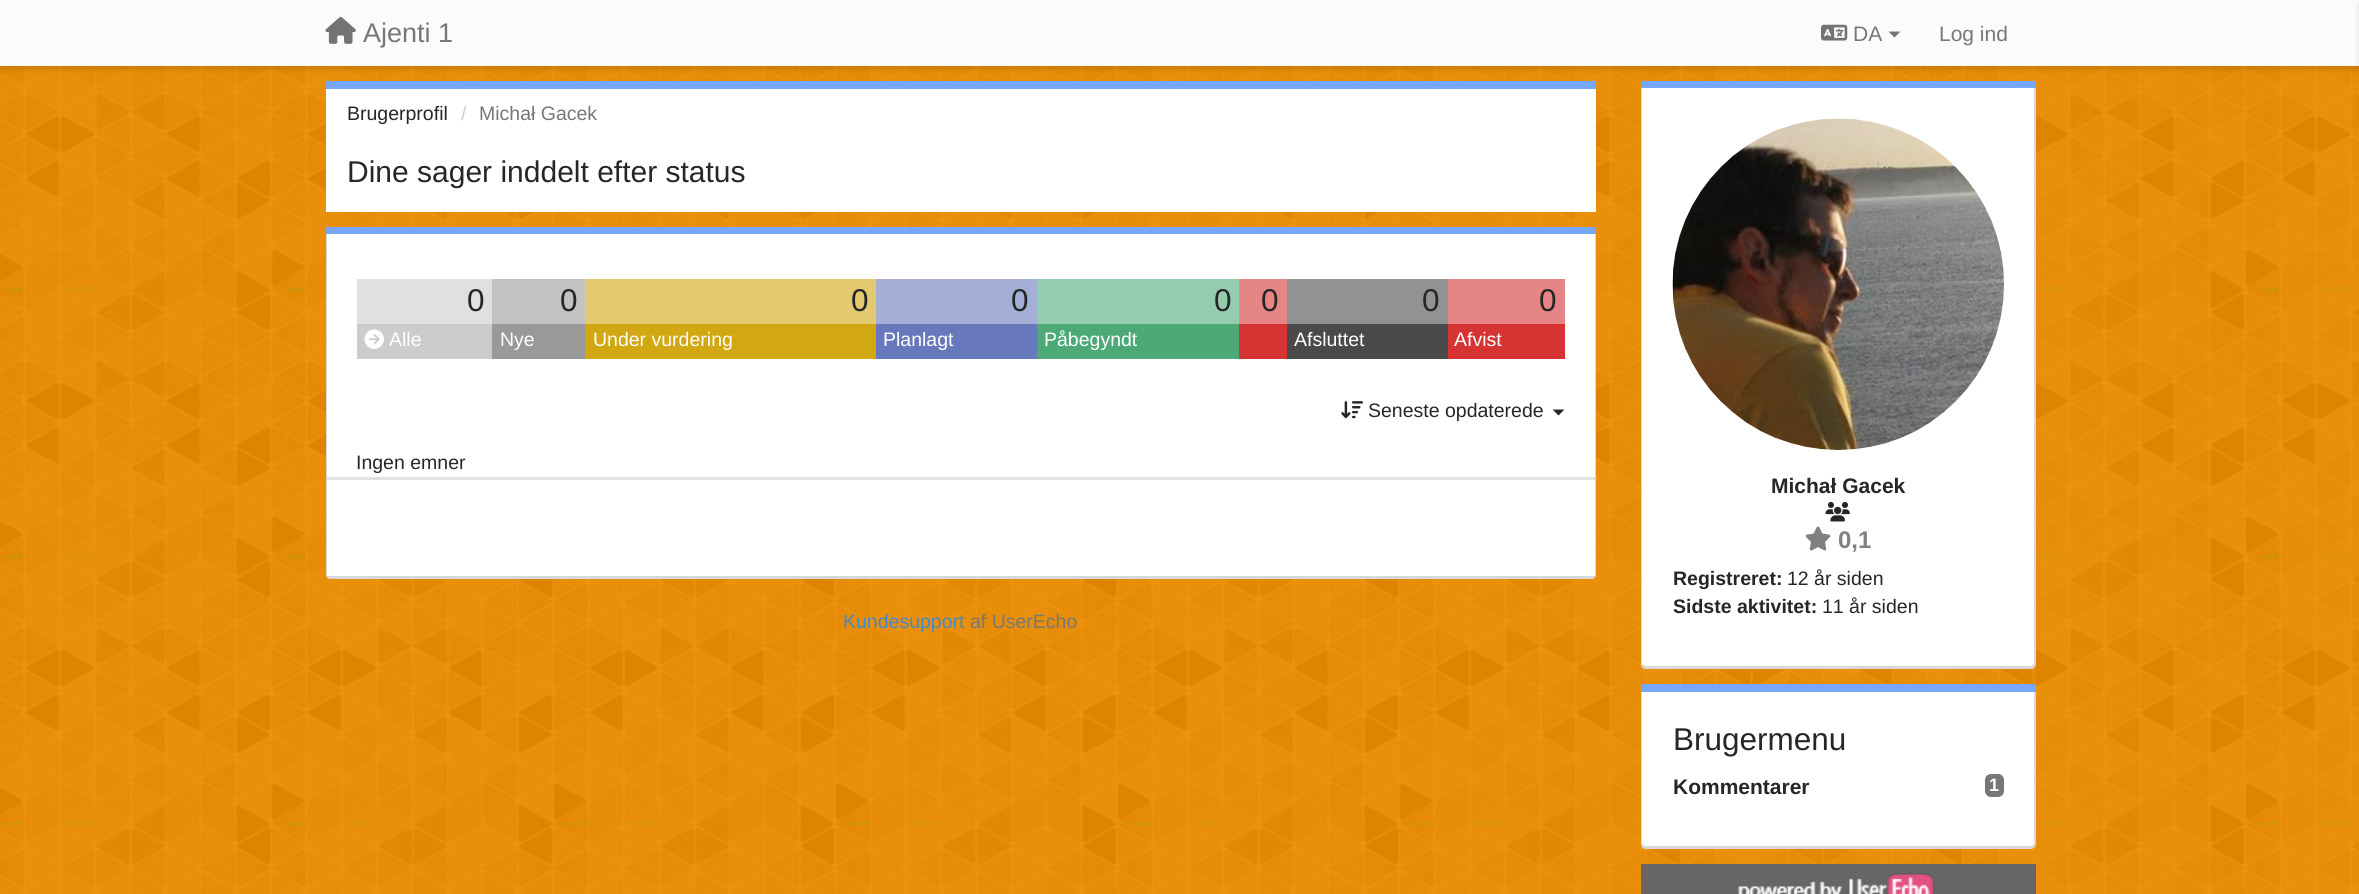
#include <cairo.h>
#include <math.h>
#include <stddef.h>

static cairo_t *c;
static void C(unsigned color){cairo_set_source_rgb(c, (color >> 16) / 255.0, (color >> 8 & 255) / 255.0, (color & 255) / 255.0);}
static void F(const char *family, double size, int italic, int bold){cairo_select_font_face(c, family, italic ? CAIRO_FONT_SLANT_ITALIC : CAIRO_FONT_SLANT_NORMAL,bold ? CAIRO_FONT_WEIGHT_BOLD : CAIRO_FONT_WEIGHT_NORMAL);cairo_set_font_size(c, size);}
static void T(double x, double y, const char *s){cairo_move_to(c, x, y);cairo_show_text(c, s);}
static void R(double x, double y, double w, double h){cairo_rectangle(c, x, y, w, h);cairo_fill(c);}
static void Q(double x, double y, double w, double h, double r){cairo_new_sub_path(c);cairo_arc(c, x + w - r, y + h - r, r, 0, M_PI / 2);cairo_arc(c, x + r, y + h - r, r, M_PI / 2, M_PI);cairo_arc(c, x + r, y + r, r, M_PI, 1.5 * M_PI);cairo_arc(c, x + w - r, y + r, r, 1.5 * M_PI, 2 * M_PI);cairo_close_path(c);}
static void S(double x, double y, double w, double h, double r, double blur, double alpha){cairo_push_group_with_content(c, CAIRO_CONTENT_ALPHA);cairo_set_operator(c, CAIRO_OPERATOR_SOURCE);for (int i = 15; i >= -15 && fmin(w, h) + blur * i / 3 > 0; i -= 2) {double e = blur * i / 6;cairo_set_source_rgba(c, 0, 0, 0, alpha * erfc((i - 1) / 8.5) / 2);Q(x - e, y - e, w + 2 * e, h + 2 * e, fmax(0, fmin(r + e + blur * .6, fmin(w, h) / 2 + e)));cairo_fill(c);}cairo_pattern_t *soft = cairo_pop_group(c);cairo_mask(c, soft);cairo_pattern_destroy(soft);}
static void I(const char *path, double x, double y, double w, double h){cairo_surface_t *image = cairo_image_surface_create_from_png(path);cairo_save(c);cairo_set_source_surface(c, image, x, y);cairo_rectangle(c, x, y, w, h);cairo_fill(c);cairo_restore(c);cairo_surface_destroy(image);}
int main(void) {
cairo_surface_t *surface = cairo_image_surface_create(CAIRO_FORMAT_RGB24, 2359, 894);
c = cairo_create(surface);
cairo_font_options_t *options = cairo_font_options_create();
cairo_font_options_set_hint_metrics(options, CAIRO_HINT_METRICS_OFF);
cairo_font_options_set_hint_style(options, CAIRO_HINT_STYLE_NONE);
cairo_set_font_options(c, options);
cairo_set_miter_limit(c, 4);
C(0xffffff);
cairo_paint(c);
I("1.png",0,66,2359,828);
C(0x000000);
S(0,3,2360,66,0,3,.15);
C(0xfbfbfb);
R(0,0,2359,66);
I("2.png",325,16,31,28);
F("Liberation Sans",27,0,0);
C(0x777777);
T(363,42,"Ajenti 1");
I("3.png",1821,24,27,17);
F("Liberation Sans",21,0,0);
T(1853,41,"DA");
C(0x737373);
cairo_new_path(c);
cairo_move_to(c,1888.5,31.5);
cairo_line_to(c,1900.5,31.5);
cairo_line_to(c,1894.5,37.5);
cairo_close_path(c);
cairo_fill(c);
C(0x777777);
T(1939,41,"Log ind");
C(0x000000);
S(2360,3,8,66,0,3,.15);
C(0xffffff);
R(326,89,1270,123);
C(0x76a7fa);
R(326,81,1270,8);
F("Liberation Sans",19.5,0,0);
C(0x262626);
T(347,120,"Brugerprofil");
C(0xcccccc);
T(461,120,"/");
C(0x777777);
T(479,120,"Michał Gacek");
F("Liberation Sans",30,0,0);
C(0x262626);
T(347,182,"Dine sager inddelt efter status");
C(0x76a7fa);
R(326,227,1270,7);
C(0xe3e3e3);
cairo_new_path(c);
cairo_move_to(c,327,234);
cairo_line_to(c,1594,234);
cairo_line_to(c,1594,574);
cairo_curve_to(c,1594,575,1593,576,1592,576);
cairo_line_to(c,330,576);
cairo_curve_to(c,328,576,327,575,327,574);
cairo_close_path(c);
cairo_fill(c);
C(0xd8d8d8);
cairo_set_fill_rule(c,CAIRO_FILL_RULE_EVEN_ODD);
cairo_new_path(c);
cairo_move_to(c,326,234);
cairo_line_to(c,1596,234);
cairo_line_to(c,1596,574);
cairo_curve_to(c,1596,577,1594,579,1592,579);
cairo_line_to(c,330,579);
cairo_curve_to(c,328,579,326,577,326,574);
cairo_close_path(c);
cairo_move_to(c,327,234);
cairo_line_to(c,1594,234);
cairo_line_to(c,1594,574);
cairo_curve_to(c,1594,575,1593,576,1592,576);
cairo_line_to(c,330,576);
cairo_curve_to(c,328,576,327,575,327,574);
cairo_close_path(c);
cairo_fill(c);
C(0xffffff);
R(327,234,1268,243);
C(0xe0e0e0);
R(357,279,135,45);
F("Liberation Sans",31.5,0,0);
C(0x262626);
T(467,311,"0");
C(0xc2c2c2);
R(492,279,93,45);
C(0x262626);
T(560,311,"0");
C(0xe3ca71);
R(585,279,291,45);
C(0x262626);
T(851,311,"0");
C(0xa4afd7);
R(876,279,161,45);
C(0x262626);
T(1011,311,"0");
C(0x94ccad);
R(1037,279,202,45);
C(0x262626);
T(1214,311,"0");
C(0xe68585);
R(1239,279,48,45);
C(0x262626);
T(1261,311,"0");
C(0x929292);
R(1287,279,161,45);
C(0x262626);
T(1422,311,"0");
C(0xe68585);
R(1448,279,117,45);
C(0x262626);
T(1539,311,"0");
C(0xcccccc);
R(357,324,135,35);
I("4.png",364,329,20,20);
F("Liberation Sans",19.5,0,0);
C(0xffffff);
T(389,346,"Alle");
C(0x999999);
R(492,324,93,35);
C(0xffffff);
T(500,346,"Nye");
C(0xd1a712);
R(585,324,291,35);
C(0xffffff);
T(593,346,"Under vurdering");
C(0x6779bc);
R(876,324,161,35);
C(0xffffff);
T(883,346,"Planlagt");
C(0x4daa77);
R(1037,324,202,35);
C(0xffffff);
T(1044,346,"Påbegyndt");
C(0xd63333);
R(1239,324,48,35);
C(0x4a4a4a);
R(1287,324,161,35);
C(0xffffff);
T(1294,346,"Afsluttet");
C(0xd63333);
R(1448,324,117,35);
C(0xffffff);
T(1454,346,"Afvist");
I("5.png",1341,401,22,18);
C(0x262626);
T(1368,417,"Seneste opdaterede");
cairo_set_fill_rule(c,CAIRO_FILL_RULE_WINDING);
cairo_new_path(c);
cairo_move_to(c,1552.5,409.5);
cairo_line_to(c,1564.5,409.5);
cairo_line_to(c,1558.5,415.5);
cairo_close_path(c);
cairo_fill(c);
T(356,469,"Ingen emner");
C(0xffffff);
R(327,480,1268,96);
C(0x428bca);
T(843,628,"Kundesupport");
C(0x777777);
T(970,628,"af UserEcho");
C(0x76a7fa);
R(1641,81,395,7);
C(0xffffff);
cairo_new_path(c);
cairo_move_to(c,1642,88);
cairo_line_to(c,2034,88);
cairo_line_to(c,2034,664);
cairo_curve_to(c,2034,665,2033,666,2031,666);
cairo_line_to(c,1646,666);
cairo_curve_to(c,1644,666,1642,665,1642,664);
cairo_close_path(c);
cairo_fill(c);
C(0xd8d8d8);
cairo_set_fill_rule(c,CAIRO_FILL_RULE_EVEN_ODD);
cairo_new_path(c);
cairo_move_to(c,1641,88);
cairo_line_to(c,2036,88);
cairo_line_to(c,2036,664);
cairo_curve_to(c,2036,667,2033,669,2031,669);
cairo_line_to(c,1646,669);
cairo_curve_to(c,1643,669,1641,667,1641,664);
cairo_close_path(c);
cairo_move_to(c,1642,88);
cairo_line_to(c,2034,88);
cairo_line_to(c,2034,664);
cairo_curve_to(c,2034,665,2033,666,2031,666);
cairo_line_to(c,1646,666);
cairo_curve_to(c,1644,666,1642,665,1642,664);
cairo_close_path(c);
cairo_fill(c);
I("6.png",1672,118,332,332);
F("Liberation Sans",21,0,1);
C(0x262626);
T(1771,493,"Michał Gacek");
I("7.png",1825,502,25,20);
I("8.png",1805,526,26,25);
F("Liberation Sans",24,0,1);
C(0x808080);
T(1838,548,"0,1");
F("Liberation Sans",19.5,0,1);
C(0x262626);
T(1673,585,"Registreret:");
F("Liberation Sans",19.5,0,0);
T(1787,585,"12 år siden");
F("Liberation Sans",19.5,0,1);
T(1673,613,"Sidste aktivitet:");
F("Liberation Sans",19.5,0,0);
T(1822,613,"11 år siden");
C(0x76a7fa);
R(1641,684,395,8);
C(0xffffff);
cairo_set_fill_rule(c,CAIRO_FILL_RULE_WINDING);
cairo_new_path(c);
cairo_move_to(c,1642,692);
cairo_line_to(c,2034,692);
cairo_line_to(c,2034,844);
cairo_curve_to(c,2034,845,2033,846,2031,846);
cairo_line_to(c,1646,846);
cairo_curve_to(c,1644,846,1642,845,1642,844);
cairo_close_path(c);
cairo_fill(c);
C(0xd8d8d8);
cairo_set_fill_rule(c,CAIRO_FILL_RULE_EVEN_ODD);
cairo_new_path(c);
cairo_move_to(c,1641,692);
cairo_line_to(c,2036,692);
cairo_line_to(c,2036,844);
cairo_curve_to(c,2036,847,2033,849,2031,849);
cairo_line_to(c,1646,849);
cairo_curve_to(c,1643,849,1641,847,1641,844);
cairo_close_path(c);
cairo_move_to(c,1642,692);
cairo_line_to(c,2034,692);
cairo_line_to(c,2034,844);
cairo_curve_to(c,2034,845,2033,846,2031,846);
cairo_line_to(c,1646,846);
cairo_curve_to(c,1644,846,1642,845,1642,844);
cairo_close_path(c);
cairo_fill(c);
F("Liberation Sans",31.5,0,0);
C(0x262626);
T(1673,750,"Brugermenu");
F("Liberation Sans",21,0,1);
T(1673,794,"Kommentarer");
C(0x777777);
Q(1985,774,19,23,6);
cairo_fill(c);
F("Liberation Sans",18,0,1);
C(0xffffff);
T(1989,791,"1");
C(0x666666);
R(1641,864,395,30);
I("9.png",1738,873,197,21);
cairo_surface_write_to_png(surface, "o.png");
cairo_font_options_destroy(options);
cairo_destroy(c);
cairo_surface_destroy(surface);
return 0;
}
